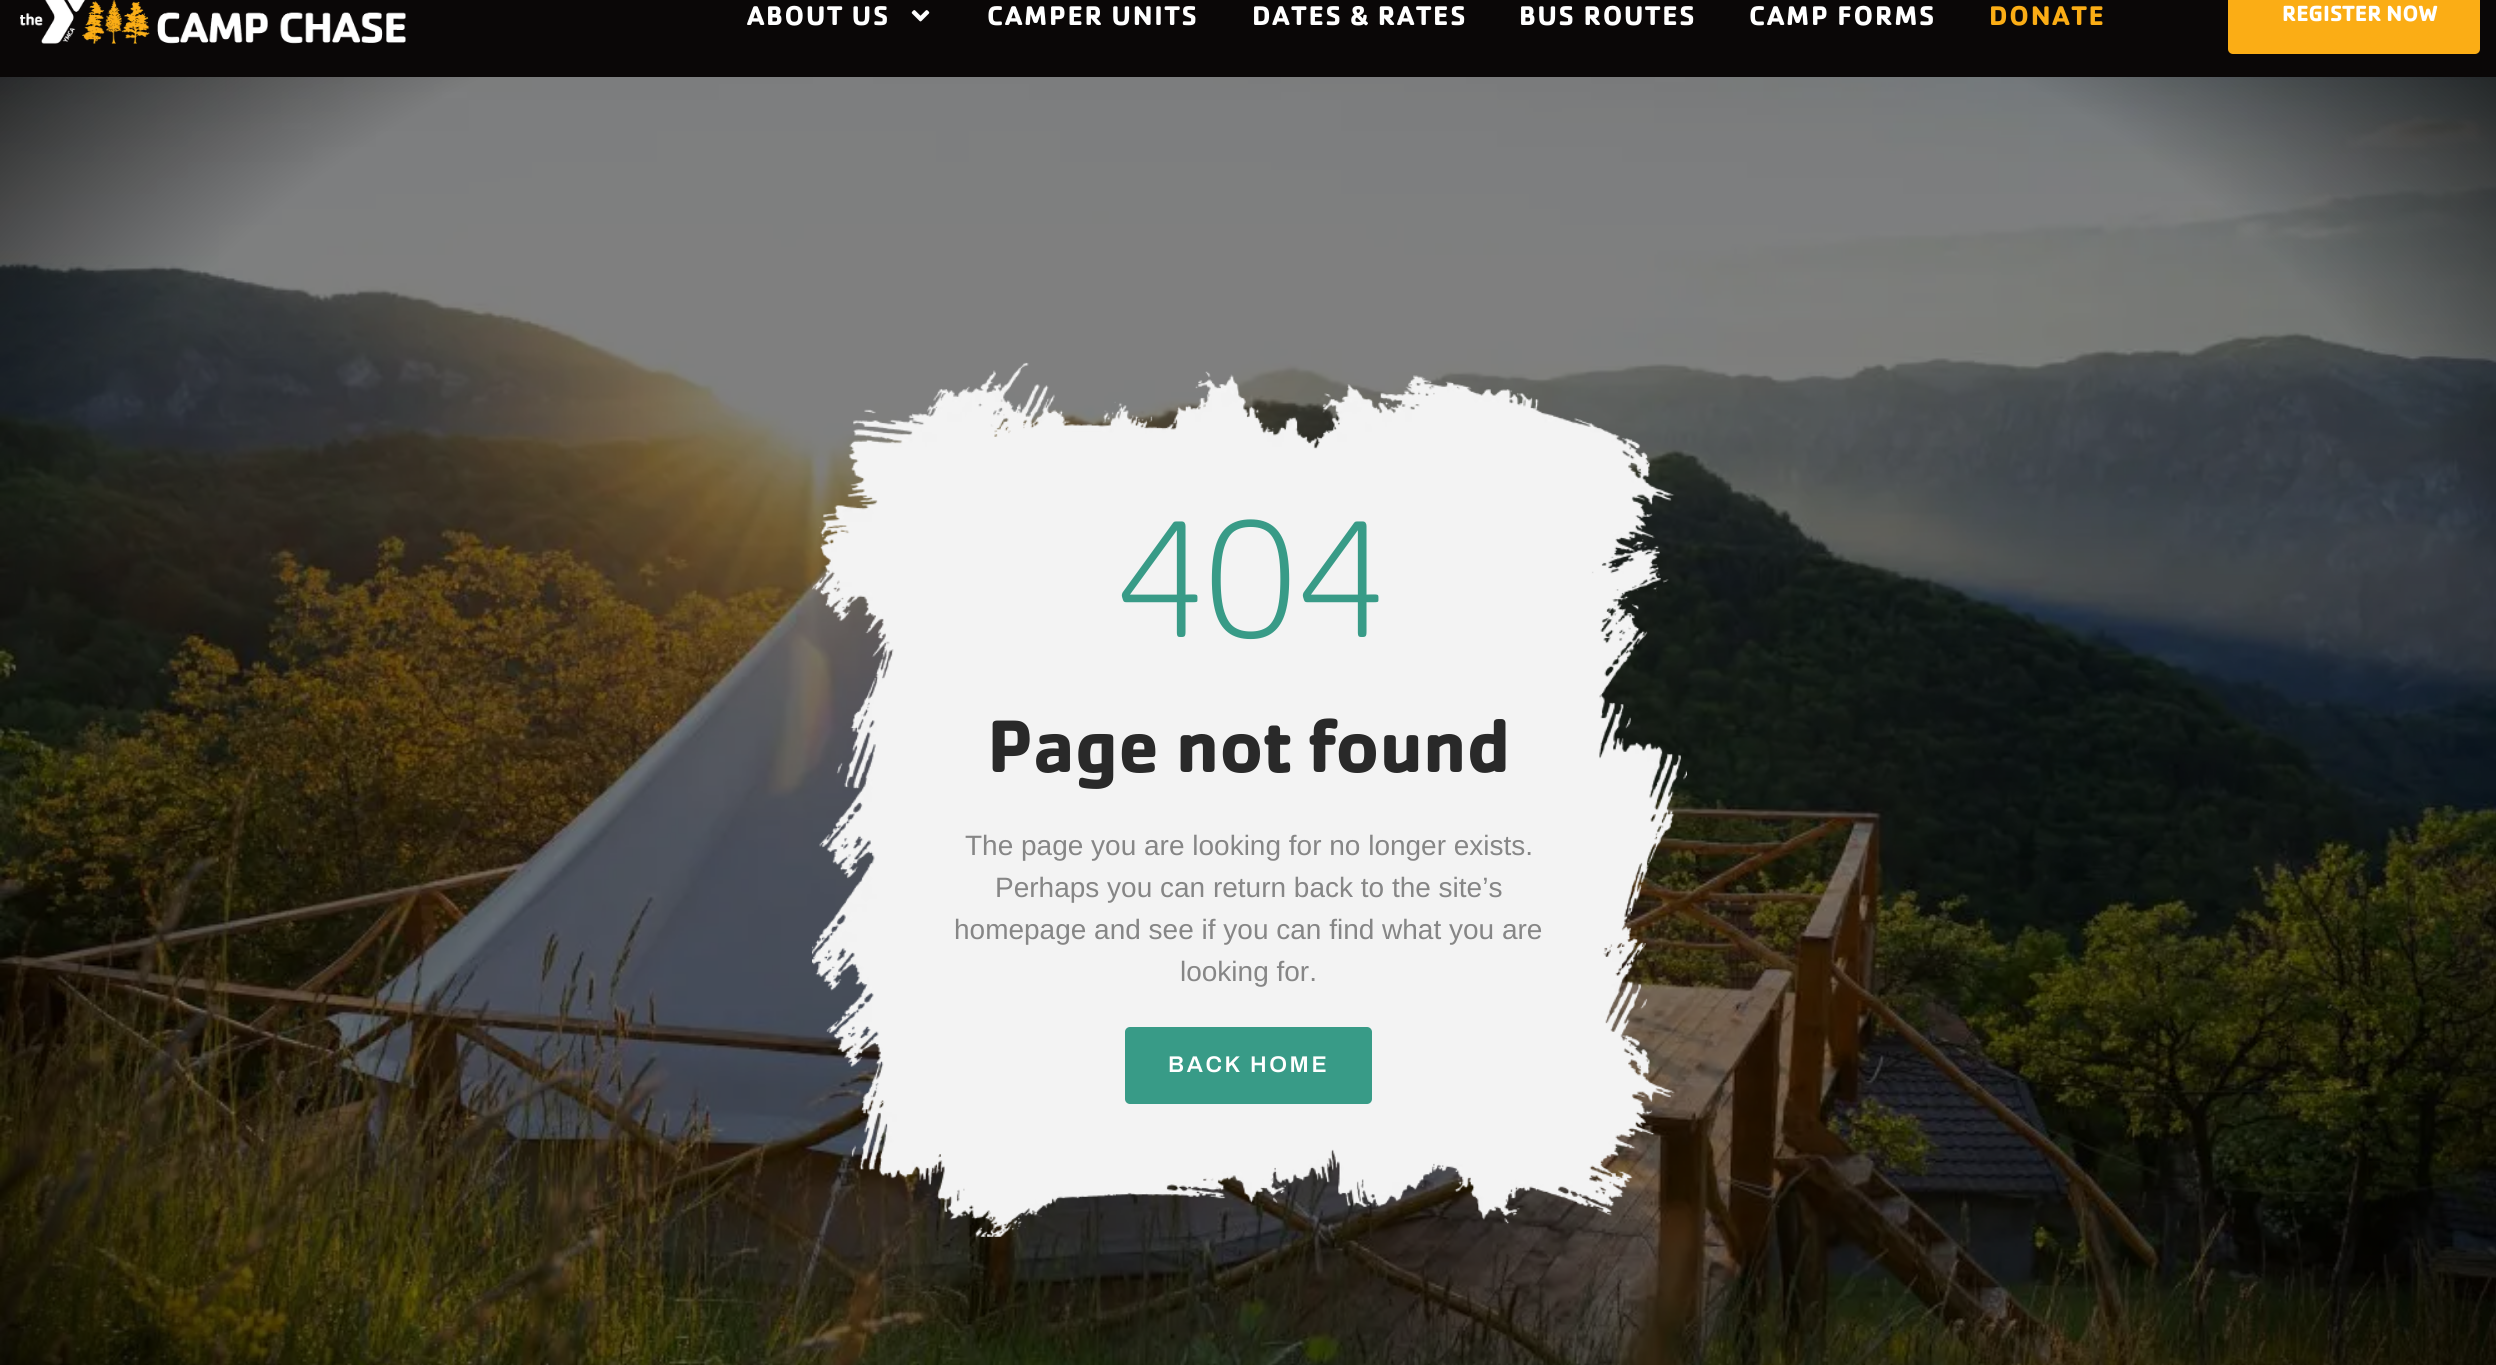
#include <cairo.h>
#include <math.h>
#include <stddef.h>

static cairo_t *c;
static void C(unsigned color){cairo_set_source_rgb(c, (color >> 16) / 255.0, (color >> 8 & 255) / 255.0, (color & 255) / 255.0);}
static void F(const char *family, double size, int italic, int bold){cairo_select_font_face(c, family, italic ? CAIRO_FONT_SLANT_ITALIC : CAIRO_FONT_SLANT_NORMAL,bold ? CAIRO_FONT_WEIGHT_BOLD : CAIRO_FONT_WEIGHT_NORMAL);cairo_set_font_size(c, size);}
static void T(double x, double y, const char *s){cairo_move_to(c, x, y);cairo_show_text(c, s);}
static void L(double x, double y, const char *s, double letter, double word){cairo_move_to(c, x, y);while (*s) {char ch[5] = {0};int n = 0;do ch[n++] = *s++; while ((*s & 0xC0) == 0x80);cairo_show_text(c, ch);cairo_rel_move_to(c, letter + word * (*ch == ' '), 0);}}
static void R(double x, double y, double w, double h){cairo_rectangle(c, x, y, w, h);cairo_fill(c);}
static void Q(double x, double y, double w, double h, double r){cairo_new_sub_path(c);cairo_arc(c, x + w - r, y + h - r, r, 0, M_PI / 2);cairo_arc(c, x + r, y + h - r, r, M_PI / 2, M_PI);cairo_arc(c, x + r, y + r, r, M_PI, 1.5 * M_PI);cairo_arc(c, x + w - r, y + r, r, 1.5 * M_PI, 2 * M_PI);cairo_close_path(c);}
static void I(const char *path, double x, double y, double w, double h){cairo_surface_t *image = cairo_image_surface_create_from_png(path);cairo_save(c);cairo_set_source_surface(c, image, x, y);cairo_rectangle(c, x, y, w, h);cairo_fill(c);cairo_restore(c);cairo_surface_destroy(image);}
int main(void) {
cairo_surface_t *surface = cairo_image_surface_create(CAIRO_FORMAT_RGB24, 2496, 1365);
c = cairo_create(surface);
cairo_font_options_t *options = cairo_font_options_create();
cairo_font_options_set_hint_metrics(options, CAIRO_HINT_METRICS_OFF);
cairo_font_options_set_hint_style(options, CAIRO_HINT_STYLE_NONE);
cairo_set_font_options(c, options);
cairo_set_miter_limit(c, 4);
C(0xffffff);
cairo_paint(c);
C(0x0a0707);
R(0,0,2496,77);
I("1.png",20,0,386,44);
F("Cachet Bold",28,0,1);
C(0xffffff);
L(747,25,"ABOUT US",1.75,0);
I("2.png",911,10,19,12);
L(987,25,"CAMPER UNITS",1.75,0);
L(1252,25,"DATES & RATES",1.75,0);
L(1519,25,"BUS ROUTES",1.75,0);
L(1749,25,"CAMP FORMS",1.75,0);
C(0xfbad15);
L(1989,25,"DONATE",1.75,0);
Q(2228,-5,252,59,5);
cairo_fill(c);
F("Cachet Bold",22.75,0,1);
C(0xffffff);
T(2282,21,"REGISTER NOW");
I("3.png",0,77,2496,1288);
I("4.png",812,362,875,875);
F("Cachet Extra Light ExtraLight",173,0,0);
C(0x389b87);
L(1117,637,"404",-3.5,0);
F("Cachet Bold",77,0,1);
C(0x292929);
T(987,772,"Page not found");
F("Liberation Sans",28,0,0);
C(0x868686);
T(965,855,"The page you are looking for no longer exists.");
T(995,897,"Perhaps you can return back to the site’s");
T(954,939,"homepage and see if you can find what you are");
T(1180,981,"looking for.");
C(0x389b87);
Q(1125,1027,247,77,5);
cairo_fill(c);
F("Archivo SemiBold",22.75,0,0);
C(0xffffff);
L(1168,1072,"BACK HOME",2.6,0);
cairo_surface_write_to_png(surface, "o.png");
cairo_font_options_destroy(options);
cairo_destroy(c);
cairo_surface_destroy(surface);
return 0;
}
